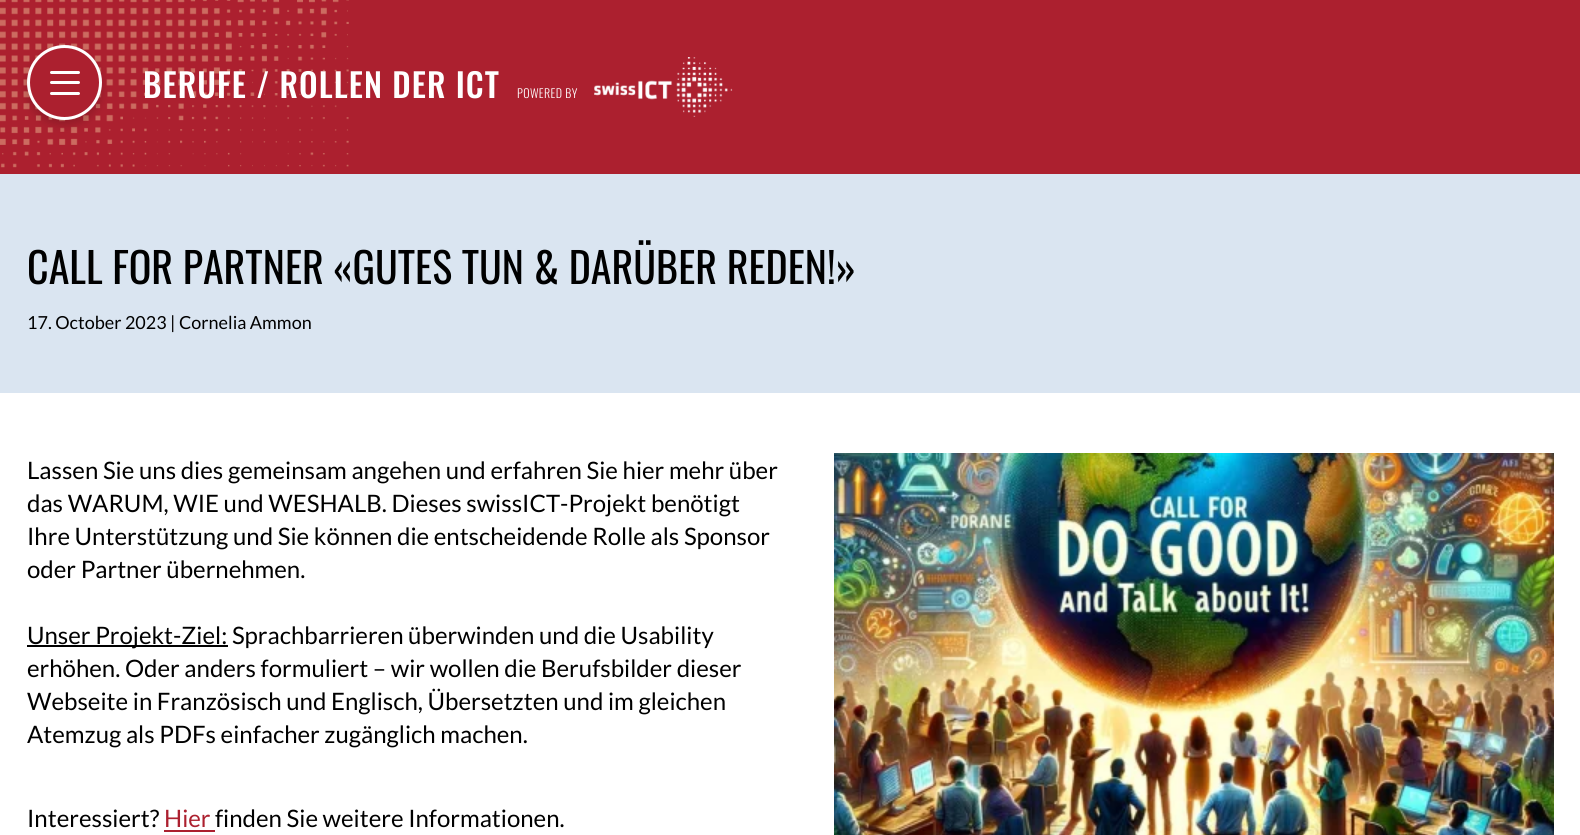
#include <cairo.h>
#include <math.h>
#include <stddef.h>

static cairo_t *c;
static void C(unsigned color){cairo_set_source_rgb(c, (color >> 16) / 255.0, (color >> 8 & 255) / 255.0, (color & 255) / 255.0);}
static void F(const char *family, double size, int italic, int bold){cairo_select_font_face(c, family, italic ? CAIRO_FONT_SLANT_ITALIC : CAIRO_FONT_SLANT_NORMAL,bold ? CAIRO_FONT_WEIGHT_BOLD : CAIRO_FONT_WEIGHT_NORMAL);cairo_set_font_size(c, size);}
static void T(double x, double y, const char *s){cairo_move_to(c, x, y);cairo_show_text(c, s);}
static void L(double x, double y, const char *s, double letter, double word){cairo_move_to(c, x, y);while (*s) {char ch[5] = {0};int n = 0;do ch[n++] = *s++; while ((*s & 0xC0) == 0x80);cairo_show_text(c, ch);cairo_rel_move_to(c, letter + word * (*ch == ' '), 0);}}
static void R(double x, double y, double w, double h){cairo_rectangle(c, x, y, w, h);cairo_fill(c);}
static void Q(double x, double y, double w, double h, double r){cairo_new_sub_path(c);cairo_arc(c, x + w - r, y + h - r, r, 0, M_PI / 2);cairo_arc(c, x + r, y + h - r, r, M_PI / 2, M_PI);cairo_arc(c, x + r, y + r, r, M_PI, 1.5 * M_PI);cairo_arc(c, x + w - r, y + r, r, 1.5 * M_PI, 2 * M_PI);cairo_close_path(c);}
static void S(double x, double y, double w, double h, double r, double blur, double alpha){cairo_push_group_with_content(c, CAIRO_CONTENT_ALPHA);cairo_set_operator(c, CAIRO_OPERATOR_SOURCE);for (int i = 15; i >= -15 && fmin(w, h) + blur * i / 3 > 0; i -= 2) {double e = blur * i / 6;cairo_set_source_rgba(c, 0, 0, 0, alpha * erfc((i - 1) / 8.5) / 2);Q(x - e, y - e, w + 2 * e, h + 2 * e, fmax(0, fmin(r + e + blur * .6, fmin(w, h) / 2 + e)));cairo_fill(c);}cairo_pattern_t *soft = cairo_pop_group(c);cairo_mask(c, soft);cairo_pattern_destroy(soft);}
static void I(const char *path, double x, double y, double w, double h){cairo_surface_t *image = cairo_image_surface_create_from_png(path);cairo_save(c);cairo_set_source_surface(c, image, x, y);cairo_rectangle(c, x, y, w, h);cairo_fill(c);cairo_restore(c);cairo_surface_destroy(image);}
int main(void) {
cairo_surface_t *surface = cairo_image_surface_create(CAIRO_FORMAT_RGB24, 1580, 835);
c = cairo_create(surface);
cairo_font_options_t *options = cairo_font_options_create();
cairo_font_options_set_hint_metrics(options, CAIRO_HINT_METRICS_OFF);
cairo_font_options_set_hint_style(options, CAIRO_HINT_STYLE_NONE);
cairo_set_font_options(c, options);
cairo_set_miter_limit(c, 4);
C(0xffffff);
cairo_paint(c);
C(0xac202f);
R(0,0,1580,174);
I("1.png",0,0,349,168);
C(0x000000);
S(27,50,75,75,37.5,4.5,.16);
C(0xac202f);
cairo_arc(c,64.5,82.5,36,0,2 * M_PI);
cairo_fill_preserve(c);
C(0xffffff);
cairo_set_line_width(c,3);
cairo_stroke(c);
Q(50,71,30,3,1.5);
cairo_fill(c);
Q(50,81,30,3,1.5);
cairo_fill(c);
Q(50,92,30,3,1.5);
cairo_fill(c);
F("Oswald Medium",33,0,0);
L(143,98,"BERUFE / ROLLEN DER ICT",1.1,0);
F("Oswald Light",12,0,0);
L(517,98,"POWERED BY",.4,0);
I("2.png",594,57,139,60);
C(0xdae5f1);
R(0,174,1580,219);
F("Oswald",42,0,0);
C(0x000000);
T(27,284,"CALL FOR PARTNER «GUTES TUN & DARÜBER REDEN!»");
F("Lato",18,0,0);
T(27,329,"17. October 2023 | Cornelia Ammon");
F("Lato",24,0,0);
T(27,479,"Lassen Sie uns dies gemeinsam angehen und erfahren Sie hier mehr über");
I("3.png",834,453,720,382);
T(27,512,"das WARUM, WIE und WESHALB. Dieses swissICT-Projekt benötigt");
T(27,545,"Ihre Unterstützung und Sie können die entscheidende Rolle als Sponsor");
T(27,578,"oder Partner übernehmen.");
R(27,645,201,2);
T(27,644,"Unser Projekt-Ziel: Sprachbarrieren überwinden und die Usability");
T(27,677,"erhöhen. Oder anders formuliert – wir wollen die Berufsbilder dieser");
T(27,710,"Webseite in Französisch und Englisch, Übersetzten und im gleichen");
T(27,743,"Atemzug als PDFs einfacher zugänglich machen.");
T(27,827,"Interessiert?");
C(0xac202f);
T(164,827,"Hier");
R(164,830,51,2);
C(0x000000);
T(215,827,"finden Sie weitere Informationen.");
cairo_surface_write_to_png(surface, "o.png");
cairo_font_options_destroy(options);
cairo_destroy(c);
cairo_surface_destroy(surface);
return 0;
}
